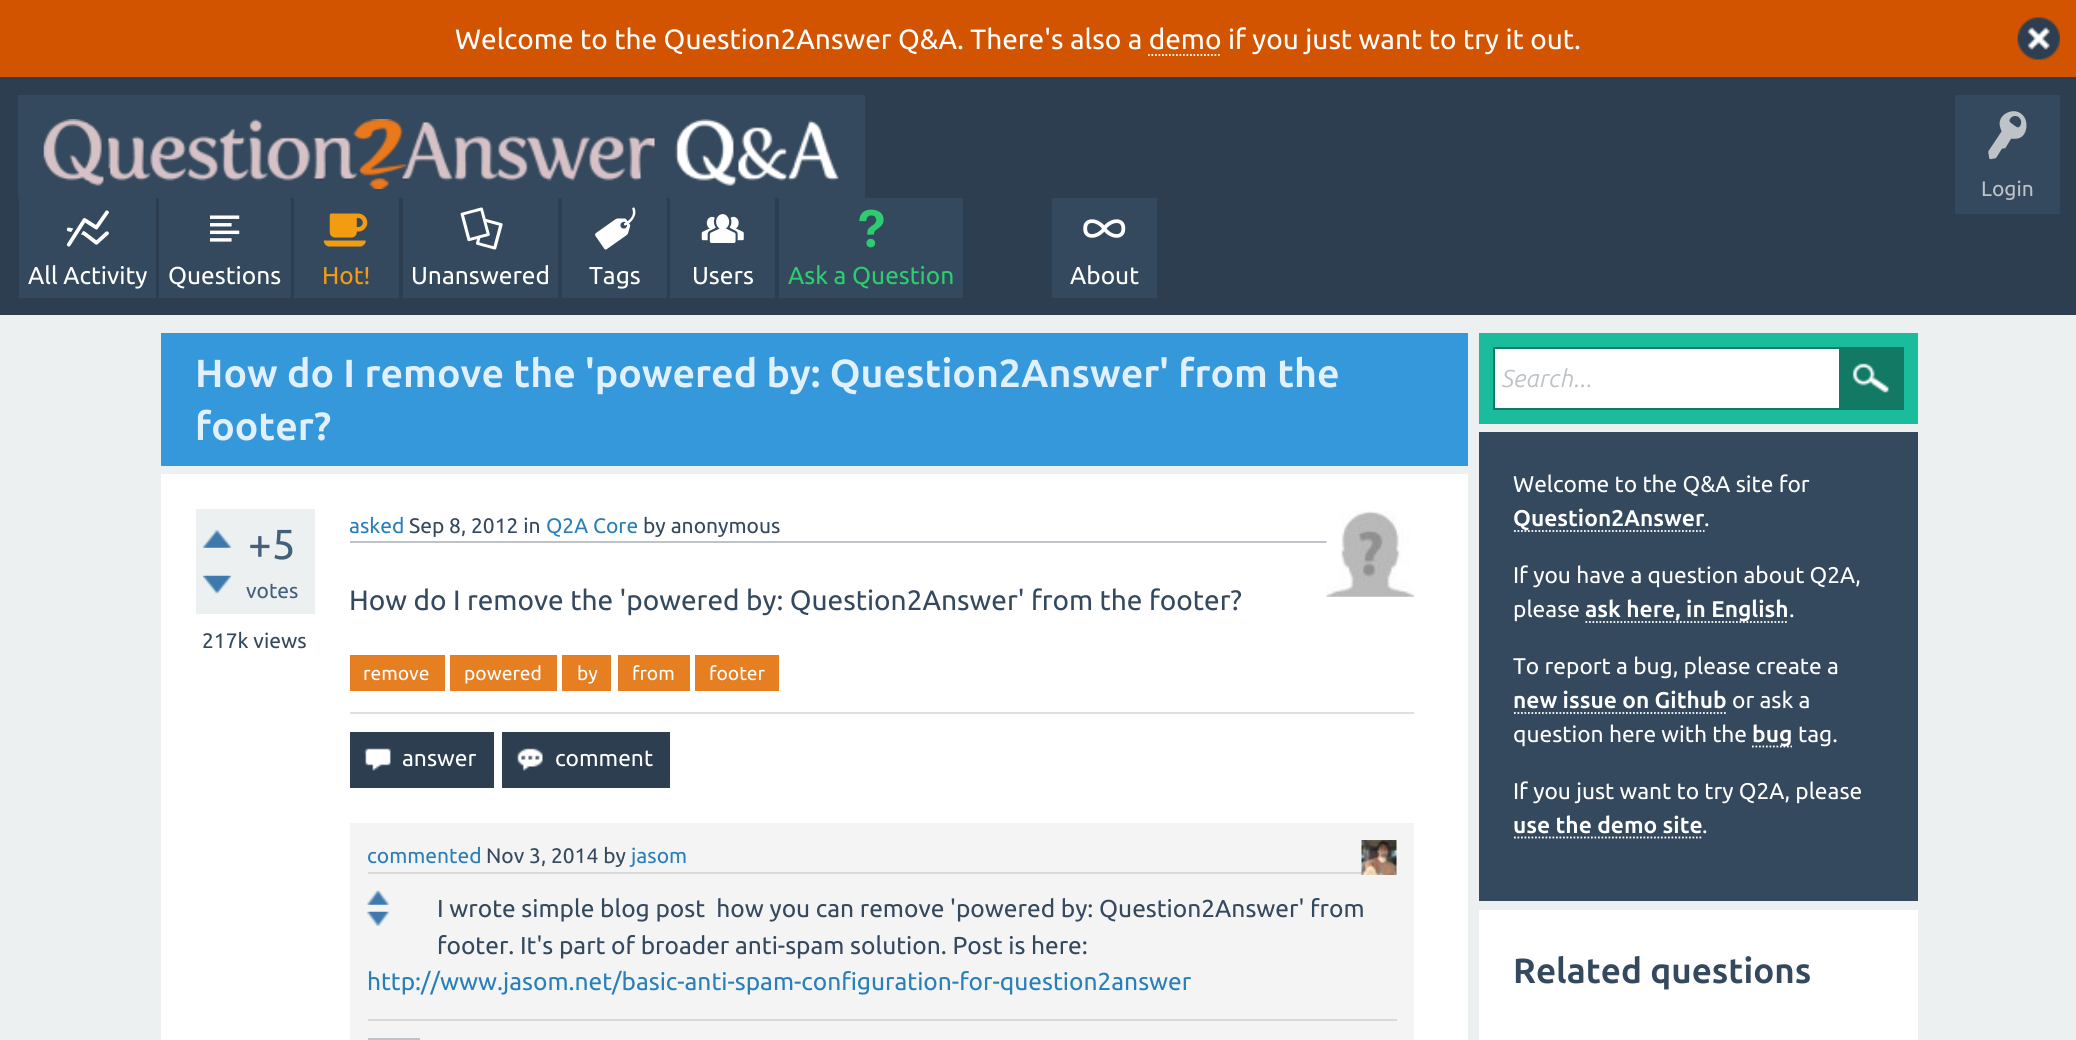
#include <cairo.h>
#include <math.h>
#include <stddef.h>

static cairo_t *c;
static void C(unsigned color){cairo_set_source_rgb(c, (color >> 16) / 255.0, (color >> 8 & 255) / 255.0, (color & 255) / 255.0);}
static void F(const char *family, double size, int italic, int bold){cairo_select_font_face(c, family, italic ? CAIRO_FONT_SLANT_ITALIC : CAIRO_FONT_SLANT_NORMAL,bold ? CAIRO_FONT_WEIGHT_BOLD : CAIRO_FONT_WEIGHT_NORMAL);cairo_set_font_size(c, size);}
static void T(double x, double y, const char *s){cairo_move_to(c, x, y);cairo_show_text(c, s);}
static void R(double x, double y, double w, double h){cairo_rectangle(c, x, y, w, h);cairo_fill(c);}
static void I(const char *path, double x, double y, double w, double h){cairo_surface_t *image = cairo_image_surface_create_from_png(path);cairo_save(c);cairo_set_source_surface(c, image, x, y);cairo_rectangle(c, x, y, w, h);cairo_fill(c);cairo_restore(c);cairo_surface_destroy(image);}
int main(void) {
cairo_surface_t *surface = cairo_image_surface_create(CAIRO_FORMAT_RGB24, 2076, 1040);
c = cairo_create(surface);
cairo_font_options_t *options = cairo_font_options_create();
cairo_font_options_set_hint_metrics(options, CAIRO_HINT_METRICS_OFF);
cairo_font_options_set_hint_style(options, CAIRO_HINT_STYLE_NONE);
cairo_set_font_options(c, options);
cairo_set_miter_limit(c, 4);
C(0xecf0f1);
cairo_paint(c);
C(0xd35400);
R(0,0,2076,77);
F("Ubuntu",28,0,0);
C(0xffffff);
T(455,49,"Welcome to the Question2Answer Q&A. There's also a demo if you just want to try it out.");
I("1.png",2017,17,43,43);
cairo_new_path(c);
cairo_move_to(c,1148,55);
cairo_line_to(c,1221.5,55);
cairo_set_line_width(c,1.8);
cairo_set_dash(c,(double[]){1.75,1.75},2,0);
cairo_stroke(c);
C(0x2c3e50);
R(0,77,2076,238);
C(0x34495e);
R(18,95,847,103);
I("2.png",43,119,796,70);
R(1955,95,105,119);
I("3.png",1988,111,39,49);
F("Ubuntu",21,0,0);
C(0xbdc3c7);
T(1981,196,"Login");
C(0x34495e);
R(19,198,137,100);
I("4.png",66,210,43,37);
F("Ubuntu",24.5,0,0);
C(0xffffff);
T(28,284,"All Activity");
C(0x34495e);
R(159,198,132,100);
I("5.png",210,215,30,27);
C(0xffffff);
T(168,284,"Questions");
C(0x34495e);
R(294,198,105,100);
I("6.png",323,213,45,34);
C(0xf39c12);
T(322,284,"Hot!");
C(0x34495e);
R(403,198,155,100);
I("7.png",460,207,43,43);
C(0xffffff);
T(411,284,"Unanswered");
C(0x34495e);
R(562,198,105,100);
I("8.png",595,207,41,43);
C(0xffffff);
T(589,284,"Tags");
C(0x34495e);
R(670,198,105,100);
I("9.png",701,214,43,29);
C(0xffffff);
T(692,284,"Users");
C(0x34495e);
R(779,198,184,100);
I("10.png",859,209,25,39);
C(0x2ecc71);
T(788,284,"Ask a Question");
C(0x34495e);
R(1052,198,105,100);
I("11.png",1083,219,43,19);
C(0xffffff);
T(1070,284,"About");
C(0x3498db);
R(161,333,1307,133);
F("Ubuntu",39.2,0,1);
C(0xe1f0fa);
T(195,387,"How do I remove the 'powered by: Question2Answer' from the");
T(195,440,"footer?");
C(0xffffff);
R(161,474,1307,566);
C(0xecf0f1);
R(196,509,119,105);
I("12.png",203,530,28,18);
I("13.png",203,575,28,19);
F("Ubuntu",42,0,0);
C(0x445f7a);
T(248,559,"+5");
F("Ubuntu",21,0,0);
T(246,598,"votes");
C(0x34495e);
T(202,648,"217k views");
C(0xbdc3c7);
R(350,541,977,2);
C(0x2980b9);
T(349,533,"asked");
C(0x34495e);
T(409,533,"Sep 8, 2012 in");
C(0x2980b9);
T(546,533,"Q2A Core");
C(0x34495e);
T(643,533,"by anonymous");
I("14.png",1326,511,88,86);
F("Ubuntu",28,0,0);
T(349,610,"How do I remove the 'powered by: Question2Answer' from the footer?");
C(0xe67e22);
R(350,655,95,36);
F("Ubuntu",19.25,0,0);
C(0xffffff);
T(363,680,"remove");
C(0xe67e22);
R(450,655,107,36);
C(0xffffff);
T(464,680,"powered");
C(0xe67e22);
R(562,655,49,36);
C(0xffffff);
T(577,680,"by");
C(0xe67e22);
R(618,655,72,36);
C(0xffffff);
T(632,680,"from");
C(0xe67e22);
R(695,655,84,36);
C(0xffffff);
T(709,680,"footer");
C(0xdee1e3);
R(350,712,1064,2);
C(0x2c3e50);
R(350,732,144,56);
I("15.png",364,748,27,23);
F("Ubuntu",22.75,0,0);
C(0xffffff);
T(402,766,"answer");
C(0x2c3e50);
R(502,732,168,56);
I("16.png",516,748,27,23);
C(0xffffff);
T(555,766,"comment");
C(0xf4f4f4);
R(350,823,1064,217);
C(0xd6dadb);
R(368,872,1029,2);
F("Ubuntu",21,0,0);
C(0x2980b9);
T(367,863,"commented");
C(0x34495e);
T(486,863,"Nov 3, 2014 by");
C(0x2980b9);
T(631,863,"jasom");
I("17.png",1361,840,36,35);
I("18.png",367,890,22,15);
I("19.png",367,911,22,15);
F("Ubuntu",24.5,0,0);
C(0x34495e);
T(437,917,"I wrote simple blog post  how you can remove 'powered by: Question2Answer' from");
T(437,954,"footer. It's part of broader anti-spam solution. Post is here:");
C(0x2980b9);
T(367,990,"http://www.jasom.net/basic-anti-spam-configuration-for-question2answer");
C(0xd6dadb);
R(368,1019,1029,2);
C(0xbdc3c7);
R(368,1038,52,2);
C(0x1abc9c);
R(1479,333,439,91);
C(0xffffff);
R(1495,349,344,59);
cairo_rectangle(c,1494,348,409,61);
C(0x117964);
cairo_set_line_width(c,2);
cairo_set_dash(c,NULL,0,0);
cairo_stroke(c);
F("Ubuntu",24.5,1,0);
C(0xbdc3c7);
T(1502,387,"Search...");
C(0x117964);
R(1839,349,63,59);
I("20.png",1852,363,37,30);
C(0x34495e);
R(1479,432,439,469);
F("Ubuntu",22.75,0,0);
C(0xffffff);
T(1513,492,"Welcome to the Q&A site for");
cairo_new_path(c);
cairo_move_to(c,1514,531);
cairo_line_to(c,1704.5,531);
cairo_set_line_width(c,1.8);
cairo_set_dash(c,(double[]){1.75,1.75},2,0);
cairo_stroke(c);
F("Ubuntu",22.75,0,1);
T(1513,526,"Question2Answer");
F("Ubuntu",22.75,0,0);
T(1704,526,".");
T(1513,583,"If you have a question about Q2A,");
T(1513,617,"please");
cairo_new_path(c);
cairo_move_to(c,1585.5,622);
cairo_line_to(c,1788.5,622);
cairo_stroke(c);
F("Ubuntu",22.75,0,1);
T(1585,617,"ask here, in English");
F("Ubuntu",22.75,0,0);
T(1789,617,".");
T(1513,674,"To report a bug, please create a");
F("Ubuntu",22.75,0,1);
T(1513,708,"new issue on Github");
cairo_new_path(c);
cairo_move_to(c,1514,713);
cairo_line_to(c,1727,713);
cairo_stroke(c);
F("Ubuntu",22.75,0,0);
T(1732,708,"or ask a");
T(1513,742,"question here with the");
cairo_new_path(c);
cairo_move_to(c,1752,746.5);
cairo_line_to(c,1792,746.5);
cairo_stroke(c);
F("Ubuntu",22.75,0,1);
T(1752,742,"bug");
F("Ubuntu",22.75,0,0);
T(1798,742,"tag.");
T(1513,799,"If you just want to try Q2A, please");
F("Ubuntu",22.75,0,1);
T(1513,833,"use the demo site");
cairo_new_path(c);
cairo_move_to(c,1514,837.5);
cairo_line_to(c,1703,837.5);
cairo_stroke(c);
F("Ubuntu",22.75,0,0);
T(1702,833,".");
R(1479,910,439,130);
F("Ubuntu",35,0,1);
C(0x34495e);
T(1513,983,"Related questions");
cairo_surface_write_to_png(surface, "o.png");
cairo_font_options_destroy(options);
cairo_destroy(c);
cairo_surface_destroy(surface);
return 0;
}
